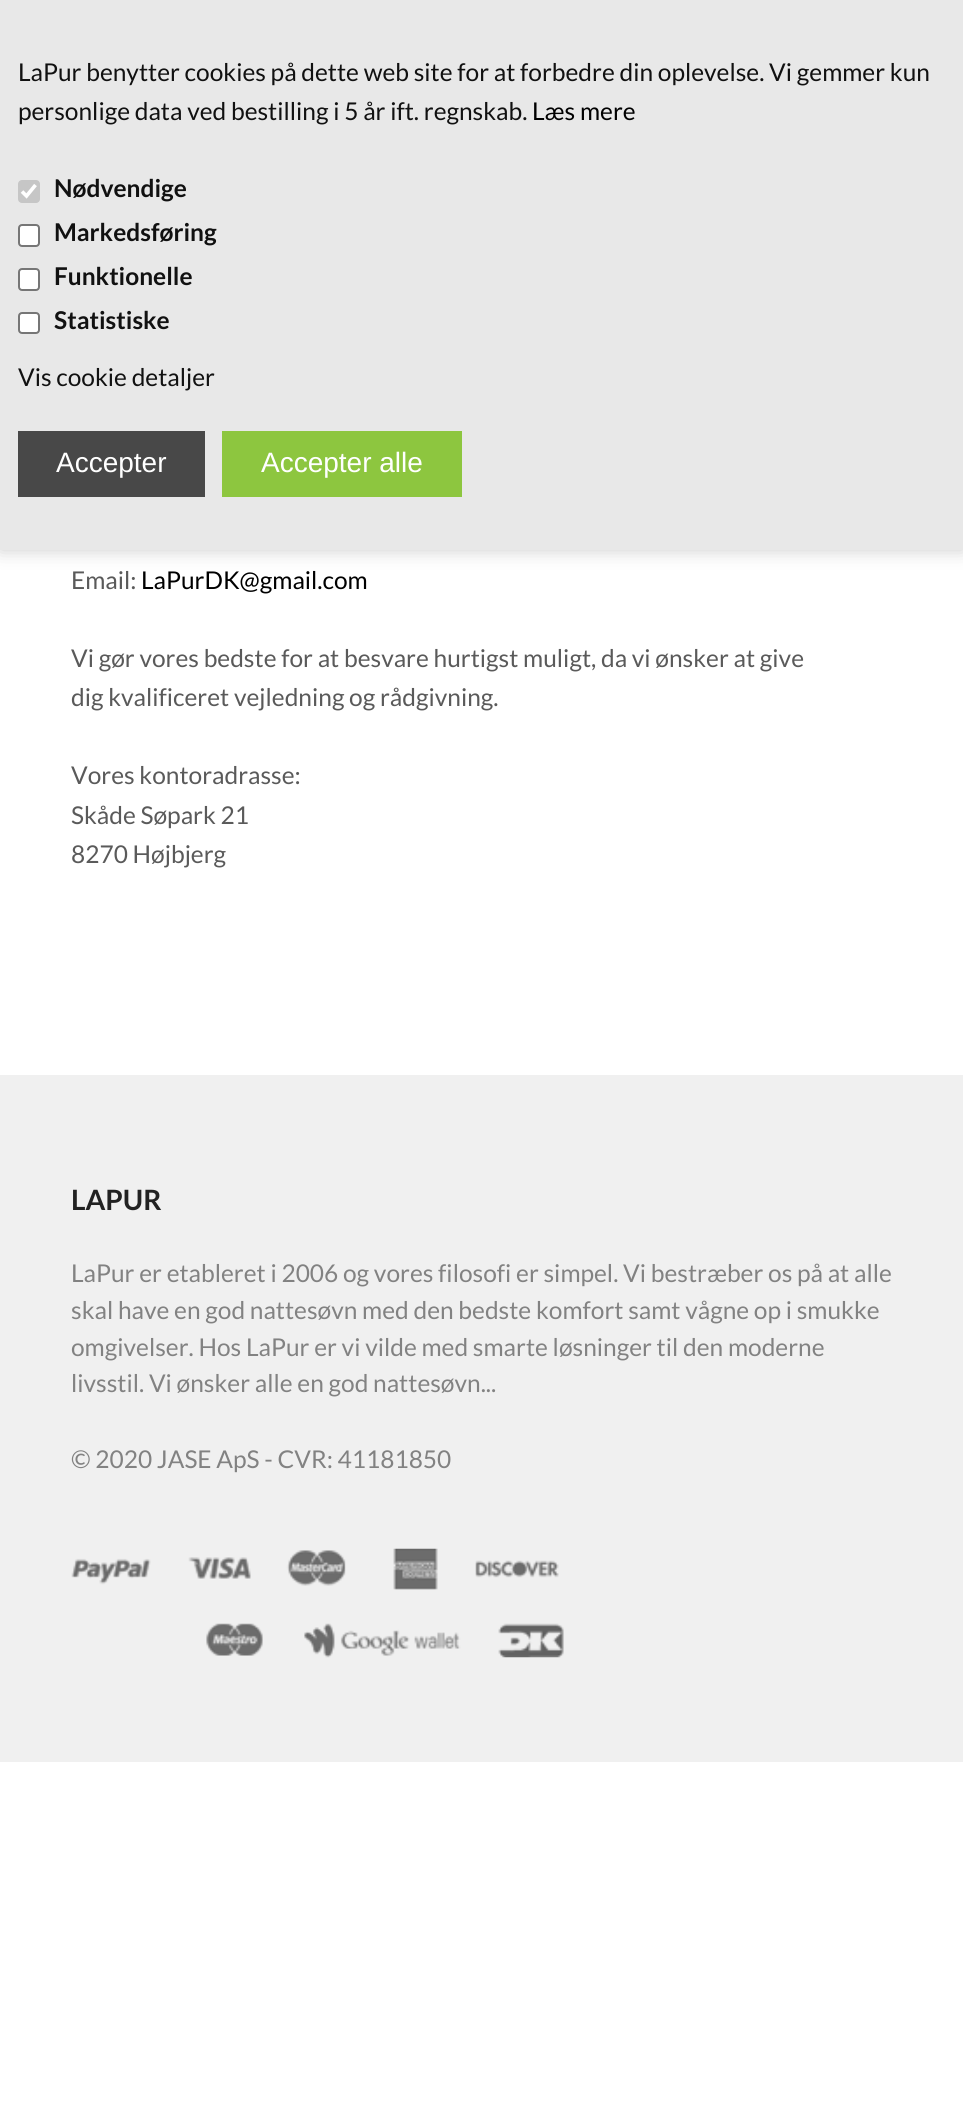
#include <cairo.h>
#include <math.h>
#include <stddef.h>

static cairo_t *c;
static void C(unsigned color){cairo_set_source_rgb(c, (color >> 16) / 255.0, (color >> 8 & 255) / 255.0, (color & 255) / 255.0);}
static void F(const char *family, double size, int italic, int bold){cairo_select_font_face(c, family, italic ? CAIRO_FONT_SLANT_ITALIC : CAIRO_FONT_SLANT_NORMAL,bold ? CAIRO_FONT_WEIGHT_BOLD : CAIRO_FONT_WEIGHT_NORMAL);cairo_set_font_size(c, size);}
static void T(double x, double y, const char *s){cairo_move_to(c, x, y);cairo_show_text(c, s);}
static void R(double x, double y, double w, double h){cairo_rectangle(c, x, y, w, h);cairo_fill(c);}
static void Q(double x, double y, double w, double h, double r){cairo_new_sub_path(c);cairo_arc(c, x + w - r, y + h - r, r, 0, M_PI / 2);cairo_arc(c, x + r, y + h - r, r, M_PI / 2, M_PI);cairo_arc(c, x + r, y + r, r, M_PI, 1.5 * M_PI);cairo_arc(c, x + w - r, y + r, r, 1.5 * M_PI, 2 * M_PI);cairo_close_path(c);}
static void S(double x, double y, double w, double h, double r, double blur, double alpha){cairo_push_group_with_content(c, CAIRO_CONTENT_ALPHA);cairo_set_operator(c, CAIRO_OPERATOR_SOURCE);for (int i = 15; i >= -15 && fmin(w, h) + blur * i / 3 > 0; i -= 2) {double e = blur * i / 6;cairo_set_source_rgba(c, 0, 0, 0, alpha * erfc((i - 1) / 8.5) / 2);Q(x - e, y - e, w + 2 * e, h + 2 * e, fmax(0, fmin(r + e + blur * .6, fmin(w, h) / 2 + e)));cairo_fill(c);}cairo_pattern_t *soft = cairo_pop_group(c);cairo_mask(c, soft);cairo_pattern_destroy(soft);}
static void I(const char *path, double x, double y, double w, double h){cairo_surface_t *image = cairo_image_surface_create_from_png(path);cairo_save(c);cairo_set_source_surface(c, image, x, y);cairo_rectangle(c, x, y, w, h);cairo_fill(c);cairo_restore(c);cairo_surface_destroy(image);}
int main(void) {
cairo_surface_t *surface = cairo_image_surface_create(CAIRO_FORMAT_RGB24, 963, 2103);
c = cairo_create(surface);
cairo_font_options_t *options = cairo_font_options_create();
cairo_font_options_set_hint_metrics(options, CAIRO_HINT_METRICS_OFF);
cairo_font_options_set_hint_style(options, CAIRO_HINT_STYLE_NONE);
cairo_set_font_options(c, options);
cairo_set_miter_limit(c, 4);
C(0xffffff);
cairo_paint(c);
C(0xcccccc);
S(0,0,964,550,0,9,1);
C(0xe8e8e8);
R(0,0,963,550);
F("Lato",24.5,0,0);
C(0x111111);
T(18,81,"LaPur benytter cookies på dette web site for at forbedre din oplevelse. Vi gemmer kun");
T(18,120,"personlige data ved bestilling i 5 år ift. regnskab.");
C(0x000000);
T(532,120,"Læs mere");
C(0xc6c6c6);
Q(18,180,22,23,4);
cairo_fill(c);
cairo_new_path(c);
cairo_move_to(c,22,191.5);
cairo_line_to(c,26.5,196);
cairo_line_to(c,35.5,185);
C(0xffffff);
cairo_set_line_width(c,3.6);
cairo_stroke(c);
F("Lato",24.5,0,1);
C(0x111111);
T(54,197,"Nødvendige");
C(0xffffff);
Q(19,225,20,21,3);
cairo_fill_preserve(c);
C(0x767676);
cairo_set_line_width(c,2);
cairo_stroke(c);
C(0x111111);
T(54,241,"Markedsføring");
C(0xffffff);
Q(19,269,20,21,3);
cairo_fill_preserve(c);
C(0x767676);
cairo_stroke(c);
C(0x111111);
T(54,285,"Funktionelle");
C(0xffffff);
Q(19,313,20,20,3);
cairo_fill_preserve(c);
C(0x767676);
cairo_stroke(c);
C(0x111111);
T(54,329,"Statistiske");
F("Lato",24.5,0,0);
T(18,386,"Vis cookie detaljer");
C(0x484848);
R(18,431,187,66);
F("Liberation Sans",28,0,0);
C(0xffffff);
T(56,472,"Accepter");
C(0x8dc63f);
R(222,431,240,66);
C(0xffffff);
T(261,472,"Accepter alle");
F("Lato",24.5,0,0);
C(0x5a5a5a);
T(71,589,"Email:");
C(0x000000);
T(141,589,"LaPurDK@gmail.com");
C(0x5a5a5a);
T(71,667,"Vi gør vores bedste for at besvare hurtigst muligt, da vi ønsker at give");
T(71,706,"dig kvalificeret vejledning og rådgivning.");
T(71,784,"Vores kontoradrasse:");
T(71,824,"Skåde Søpark 21");
T(71,863,"8270 Højbjerg");
C(0xf0f0f0);
R(0,1075,963,687);
F("Lato",28,0,1);
C(0x222222);
T(71,1210,"LAPUR");
F("Lato",24.5,0,0);
C(0x828282);
T(71,1282,"LaPur er etableret i 2006 og vores filosofi er simpel. Vi bestræber os på at alle");
T(71,1319,"skal have en god nattesøvn med den bedste komfort samt vågne op i smukke");
T(71,1356,"omgivelser. Hos LaPur er vi vilde med smarte løsninger til den moderne");
T(71,1392,"livsstil. Vi ønsker alle en god nattesøvn...");
T(71,1468,"© 2020 JASE ApS - CVR: 41181850");
I("1.png",71,1548,493,110);
cairo_surface_write_to_png(surface, "o.png");
cairo_font_options_destroy(options);
cairo_destroy(c);
cairo_surface_destroy(surface);
return 0;
}
